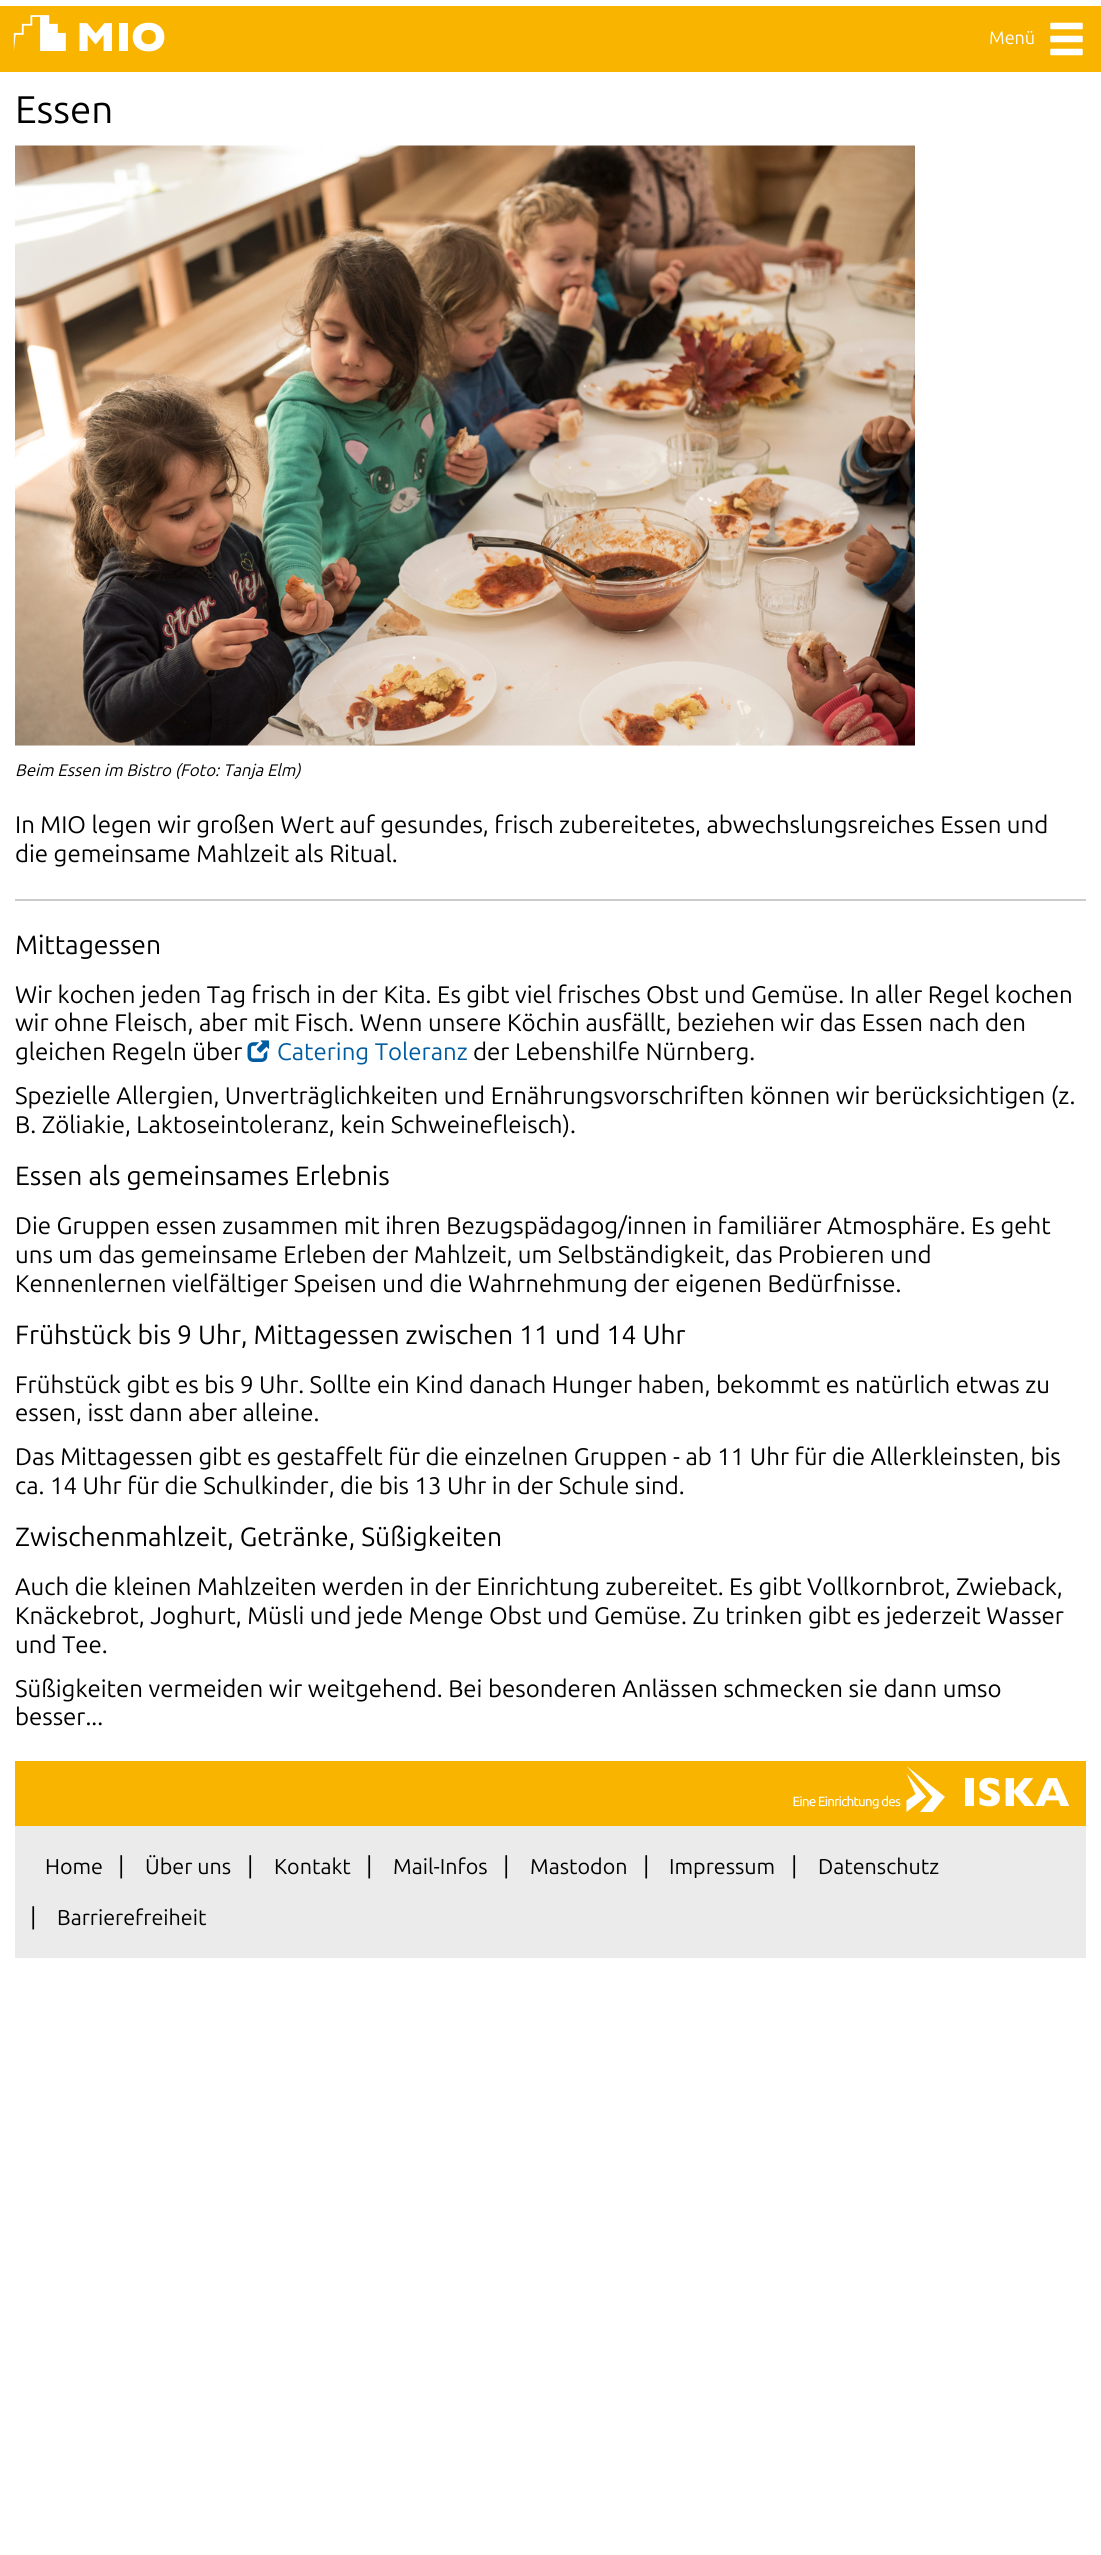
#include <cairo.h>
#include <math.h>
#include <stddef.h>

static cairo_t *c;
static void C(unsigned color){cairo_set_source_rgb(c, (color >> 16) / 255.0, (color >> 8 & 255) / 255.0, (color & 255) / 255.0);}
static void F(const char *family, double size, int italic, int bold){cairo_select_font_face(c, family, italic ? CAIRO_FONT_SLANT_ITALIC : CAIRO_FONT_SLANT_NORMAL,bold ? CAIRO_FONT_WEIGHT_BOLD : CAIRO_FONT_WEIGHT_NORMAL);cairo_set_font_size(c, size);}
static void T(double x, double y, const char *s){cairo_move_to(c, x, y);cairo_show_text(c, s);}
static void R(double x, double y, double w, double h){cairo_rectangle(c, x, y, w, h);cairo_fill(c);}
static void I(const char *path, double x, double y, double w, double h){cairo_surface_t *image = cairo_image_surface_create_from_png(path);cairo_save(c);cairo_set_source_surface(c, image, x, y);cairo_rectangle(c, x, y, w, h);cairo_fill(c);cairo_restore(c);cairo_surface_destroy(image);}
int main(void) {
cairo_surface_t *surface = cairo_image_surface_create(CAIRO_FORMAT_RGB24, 1101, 2555);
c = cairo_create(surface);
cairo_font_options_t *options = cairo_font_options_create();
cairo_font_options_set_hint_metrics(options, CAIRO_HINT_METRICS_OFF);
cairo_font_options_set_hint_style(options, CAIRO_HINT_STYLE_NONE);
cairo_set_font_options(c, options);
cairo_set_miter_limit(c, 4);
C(0xffffff);
cairo_paint(c);
C(0xf9b400);
R(0,6,1101,66);
I("1.png",13,15,152,37);
F("Ubuntu",18,0,0);
C(0xffffff);
T(989,44,"Menü");
I("2.png",1050,22,33,34);
F("Ubuntu",38.5,0,0);
C(0x000000);
T(15,123,"Essen");
I("3.png",15,145,900,601);
F("Ubuntu",16.75,1,0);
T(15,776,"Beim Essen im Bistro (Foto: Tanja Elm)");
C(0xcccccc);
R(15,899,1071,2);
F("Ubuntu",24,0,0);
C(0x000000);
T(15,833,"In MIO legen wir großen Wert auf gesundes, frisch zubereitetes, abwechslungsreiches Essen und");
T(15,862,"die gemeinsame Mahlzeit als Ritual.");
F("Ubuntu",26.4,0,0);
T(15,954,"Mittagessen");
F("Ubuntu",24,0,0);
T(15,1003,"Wir kochen jeden Tag frisch in der Kita. Es gibt viel frisches Obst und Gemüse. In aller Regel kochen");
T(15,1031,"wir ohne Fleisch, aber mit Fisch. Wenn unsere Köchin ausfällt, beziehen wir das Essen nach den");
T(15,1060,"gleichen Regeln über");
I("4.png",247,1040,23,22);
C(0x005ca1);
T(277,1060,"Catering Toleranz");
C(0x000000);
T(473,1060,"der Lebenshilfe Nürnberg.");
T(15,1104,"Spezielle Allergien, Unverträglichkeiten und Ernährungsvorschriften können wir berücksichtigen (z.");
T(15,1133,"B. Zöliakie, Laktoseintoleranz, kein Schweinefleisch).");
F("Ubuntu",26.4,0,0);
T(15,1185,"Essen als gemeinsames Erlebnis");
F("Ubuntu",24,0,0);
T(15,1234,"Die Gruppen essen zusammen mit ihren Bezugspädagog/innen in familiärer Atmosphäre. Es geht");
T(15,1263,"uns um das gemeinsame Erleben der Mahlzeit, um Selbständigkeit, das Probieren und");
T(15,1292,"Kennenlernen vielfältiger Speisen und die Wahrnehmung der eigenen Bedürfnisse.");
F("Ubuntu",26.4,0,0);
T(15,1344,"Frühstück bis 9 Uhr, Mittagessen zwischen 11 und 14 Uhr");
F("Ubuntu",24,0,0);
T(15,1393,"Frühstück gibt es bis 9 Uhr. Sollte ein Kind danach Hunger haben, bekommt es natürlich etwas zu");
T(15,1421,"essen, isst dann aber alleine.");
T(15,1465,"Das Mittagessen gibt es gestaffelt für die einzelnen Gruppen - ab 11 Uhr für die Allerkleinsten, bis");
T(15,1494,"ca. 14 Uhr für die Schulkinder, die bis 13 Uhr in der Schule sind.");
F("Ubuntu",26.4,0,0);
T(15,1546,"Zwischenmahlzeit, Getränke, Süßigkeiten");
F("Ubuntu",24,0,0);
T(15,1595,"Auch die kleinen Mahlzeiten werden in der Einrichtung zubereitet. Es gibt Vollkornbrot, Zwieback,");
T(15,1624,"Knäckebrot, Joghurt, Müsli und jede Menge Obst und Gemüse. Zu trinken gibt es jederzeit Wasser");
T(15,1653,"und Tee.");
T(15,1697,"Süßigkeiten vermeiden wir weitgehend. Bei besonderen Anlässen schmecken sie dann umso");
T(15,1725,"besser...");
C(0xf9b400);
R(15,1761,1071,65);
I("5.png",793,1766,277,46);
C(0xebebeb);
R(15,1826,1071,132);
F("Ubuntu",21.5,0,0);
C(0x000000);
T(45,1874,"Home");
F("Ubuntu",24,0,0);
T(118,1874,"|");
F("Ubuntu",21.5,0,0);
T(145,1874,"Über uns");
F("Ubuntu",24,0,0);
T(247,1874,"|");
F("Ubuntu",21.5,0,0);
T(274,1874,"Kontakt");
F("Ubuntu",24,0,0);
T(366,1874,"|");
F("Ubuntu",21.5,0,0);
T(393,1874,"Mail-Infos");
F("Ubuntu",24,0,0);
T(503,1874,"|");
F("Ubuntu",21.5,0,0);
T(530,1874,"Mastodon");
F("Ubuntu",24,0,0);
T(643,1874,"|");
F("Ubuntu",21.5,0,0);
T(669,1874,"Impressum");
F("Ubuntu",24,0,0);
T(791,1874,"|");
F("Ubuntu",21.5,0,0);
T(818,1874,"Datenschutz");
F("Ubuntu",24,0,0);
T(30,1925,"|");
F("Ubuntu",21.5,0,0);
T(57,1925,"Barrierefreiheit");
cairo_surface_write_to_png(surface, "o.png");
cairo_font_options_destroy(options);
cairo_destroy(c);
cairo_surface_destroy(surface);
return 0;
}
